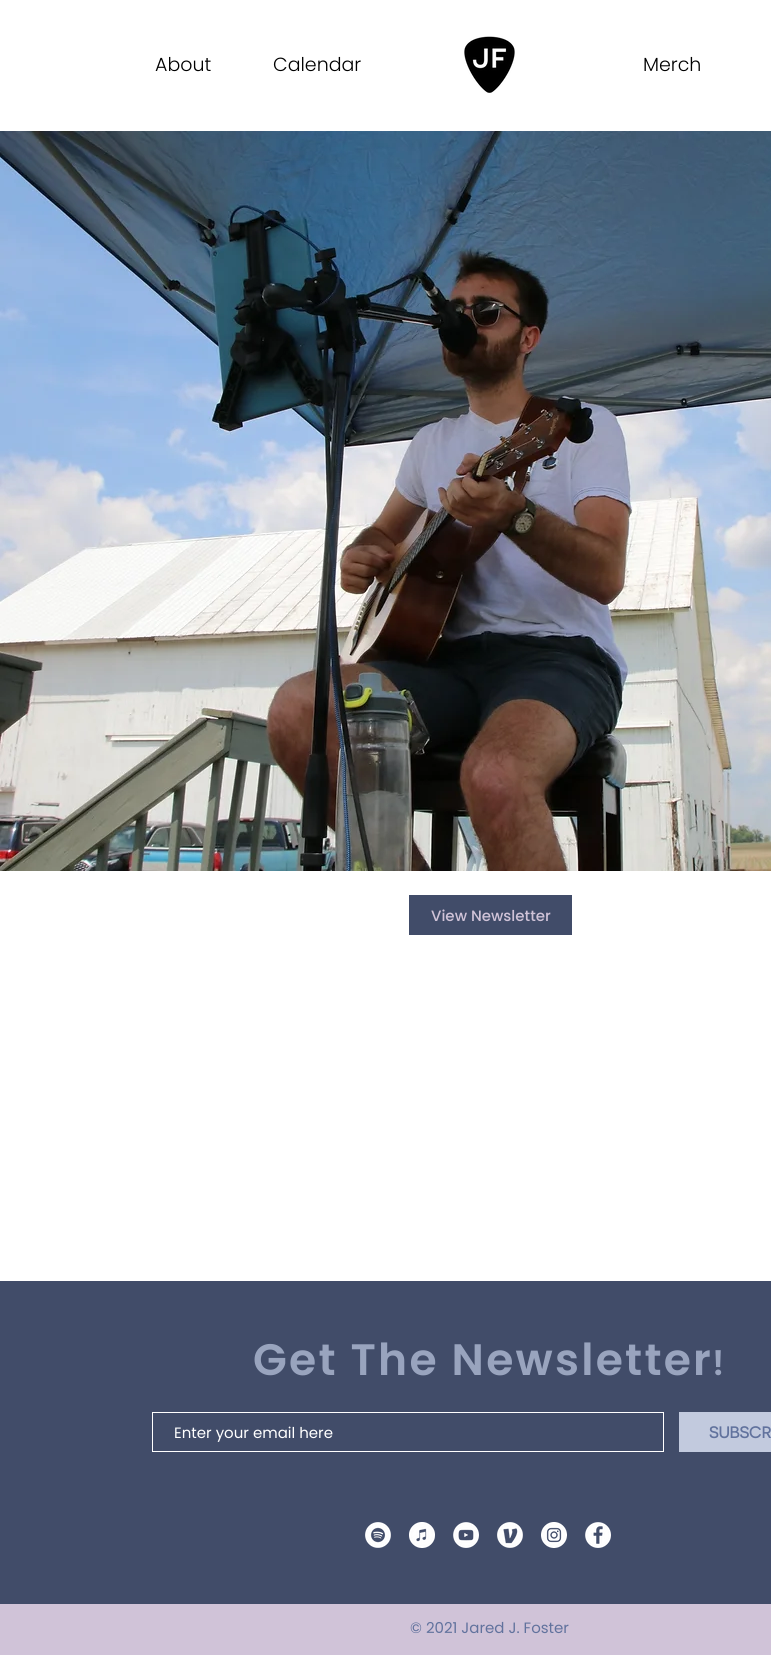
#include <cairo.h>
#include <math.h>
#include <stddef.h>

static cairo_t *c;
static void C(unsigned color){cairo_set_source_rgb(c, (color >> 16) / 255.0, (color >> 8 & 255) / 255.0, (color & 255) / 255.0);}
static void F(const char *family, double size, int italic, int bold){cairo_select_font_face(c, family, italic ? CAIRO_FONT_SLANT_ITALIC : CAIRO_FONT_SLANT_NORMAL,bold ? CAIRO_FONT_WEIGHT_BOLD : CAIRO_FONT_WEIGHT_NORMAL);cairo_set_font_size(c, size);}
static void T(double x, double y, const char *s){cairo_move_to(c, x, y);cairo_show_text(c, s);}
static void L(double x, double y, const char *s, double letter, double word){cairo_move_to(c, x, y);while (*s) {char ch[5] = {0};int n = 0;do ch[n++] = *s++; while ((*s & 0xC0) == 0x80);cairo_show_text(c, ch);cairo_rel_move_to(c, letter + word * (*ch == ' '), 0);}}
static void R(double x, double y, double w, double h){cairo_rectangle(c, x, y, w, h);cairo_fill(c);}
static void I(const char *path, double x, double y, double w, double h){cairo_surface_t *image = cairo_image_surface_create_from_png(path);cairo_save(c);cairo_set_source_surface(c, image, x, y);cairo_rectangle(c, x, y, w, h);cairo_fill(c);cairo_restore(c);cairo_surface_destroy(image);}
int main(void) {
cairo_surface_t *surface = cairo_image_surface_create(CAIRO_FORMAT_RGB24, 771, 1655);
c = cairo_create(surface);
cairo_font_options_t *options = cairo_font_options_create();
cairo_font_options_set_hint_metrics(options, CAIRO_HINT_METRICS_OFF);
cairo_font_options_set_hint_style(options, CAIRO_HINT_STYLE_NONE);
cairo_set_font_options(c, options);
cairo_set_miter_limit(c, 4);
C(0xffffff);
cairo_paint(c);
F("Poppins Light",19,0,0);
C(0x000000);
T(155,71,"About");
T(273,71,"Calendar");
I("1.png",464,36,51,57);
T(643,71,"Merch");
I("2.png",0,131,771,740);
C(0x414c69);
R(409,895,163,40);
F("Poppins Medium",15,0,0);
C(0xd0c3d8);
T(431,921,"View Newsletter");
C(0x414c69);
R(0,1281,771,323);
F("Poppins SemiBold",44,0,0);
C(0x99a4be);
L(253,1375,"Get The Newsletter",2.25,0);
F("Poppins SemiBold",35,0,0);
L(712,1375,"!",2,0);
cairo_rectangle(c,152.5,1412.5,511,39);
C(0xffffff);
cairo_set_line_width(c,1);
cairo_stroke(c);
F("Poppins",15,0,0);
T(174,1438,"Enter your email here");
C(0xc2cade);
R(679,1412,92,40);
F("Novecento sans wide",16,0,1);
C(0x61729d);
T(709,1438,"SUBSCR");
I("3.png",365,1522,26,26);
I("4.png",409,1522,26,26);
I("5.png",453,1522,26,26);
I("6.png",497,1522,26,26);
I("7.png",541,1522,26,26);
I("8.png",585,1522,26,26);
C(0xd0c3d8);
R(0,1604,771,51);
F("Poppins",15,0,0);
C(0x61729d);
T(410,1633,"© 2021 Jared J. Foster");
cairo_surface_write_to_png(surface, "o.png");
cairo_font_options_destroy(options);
cairo_destroy(c);
cairo_surface_destroy(surface);
return 0;
}
